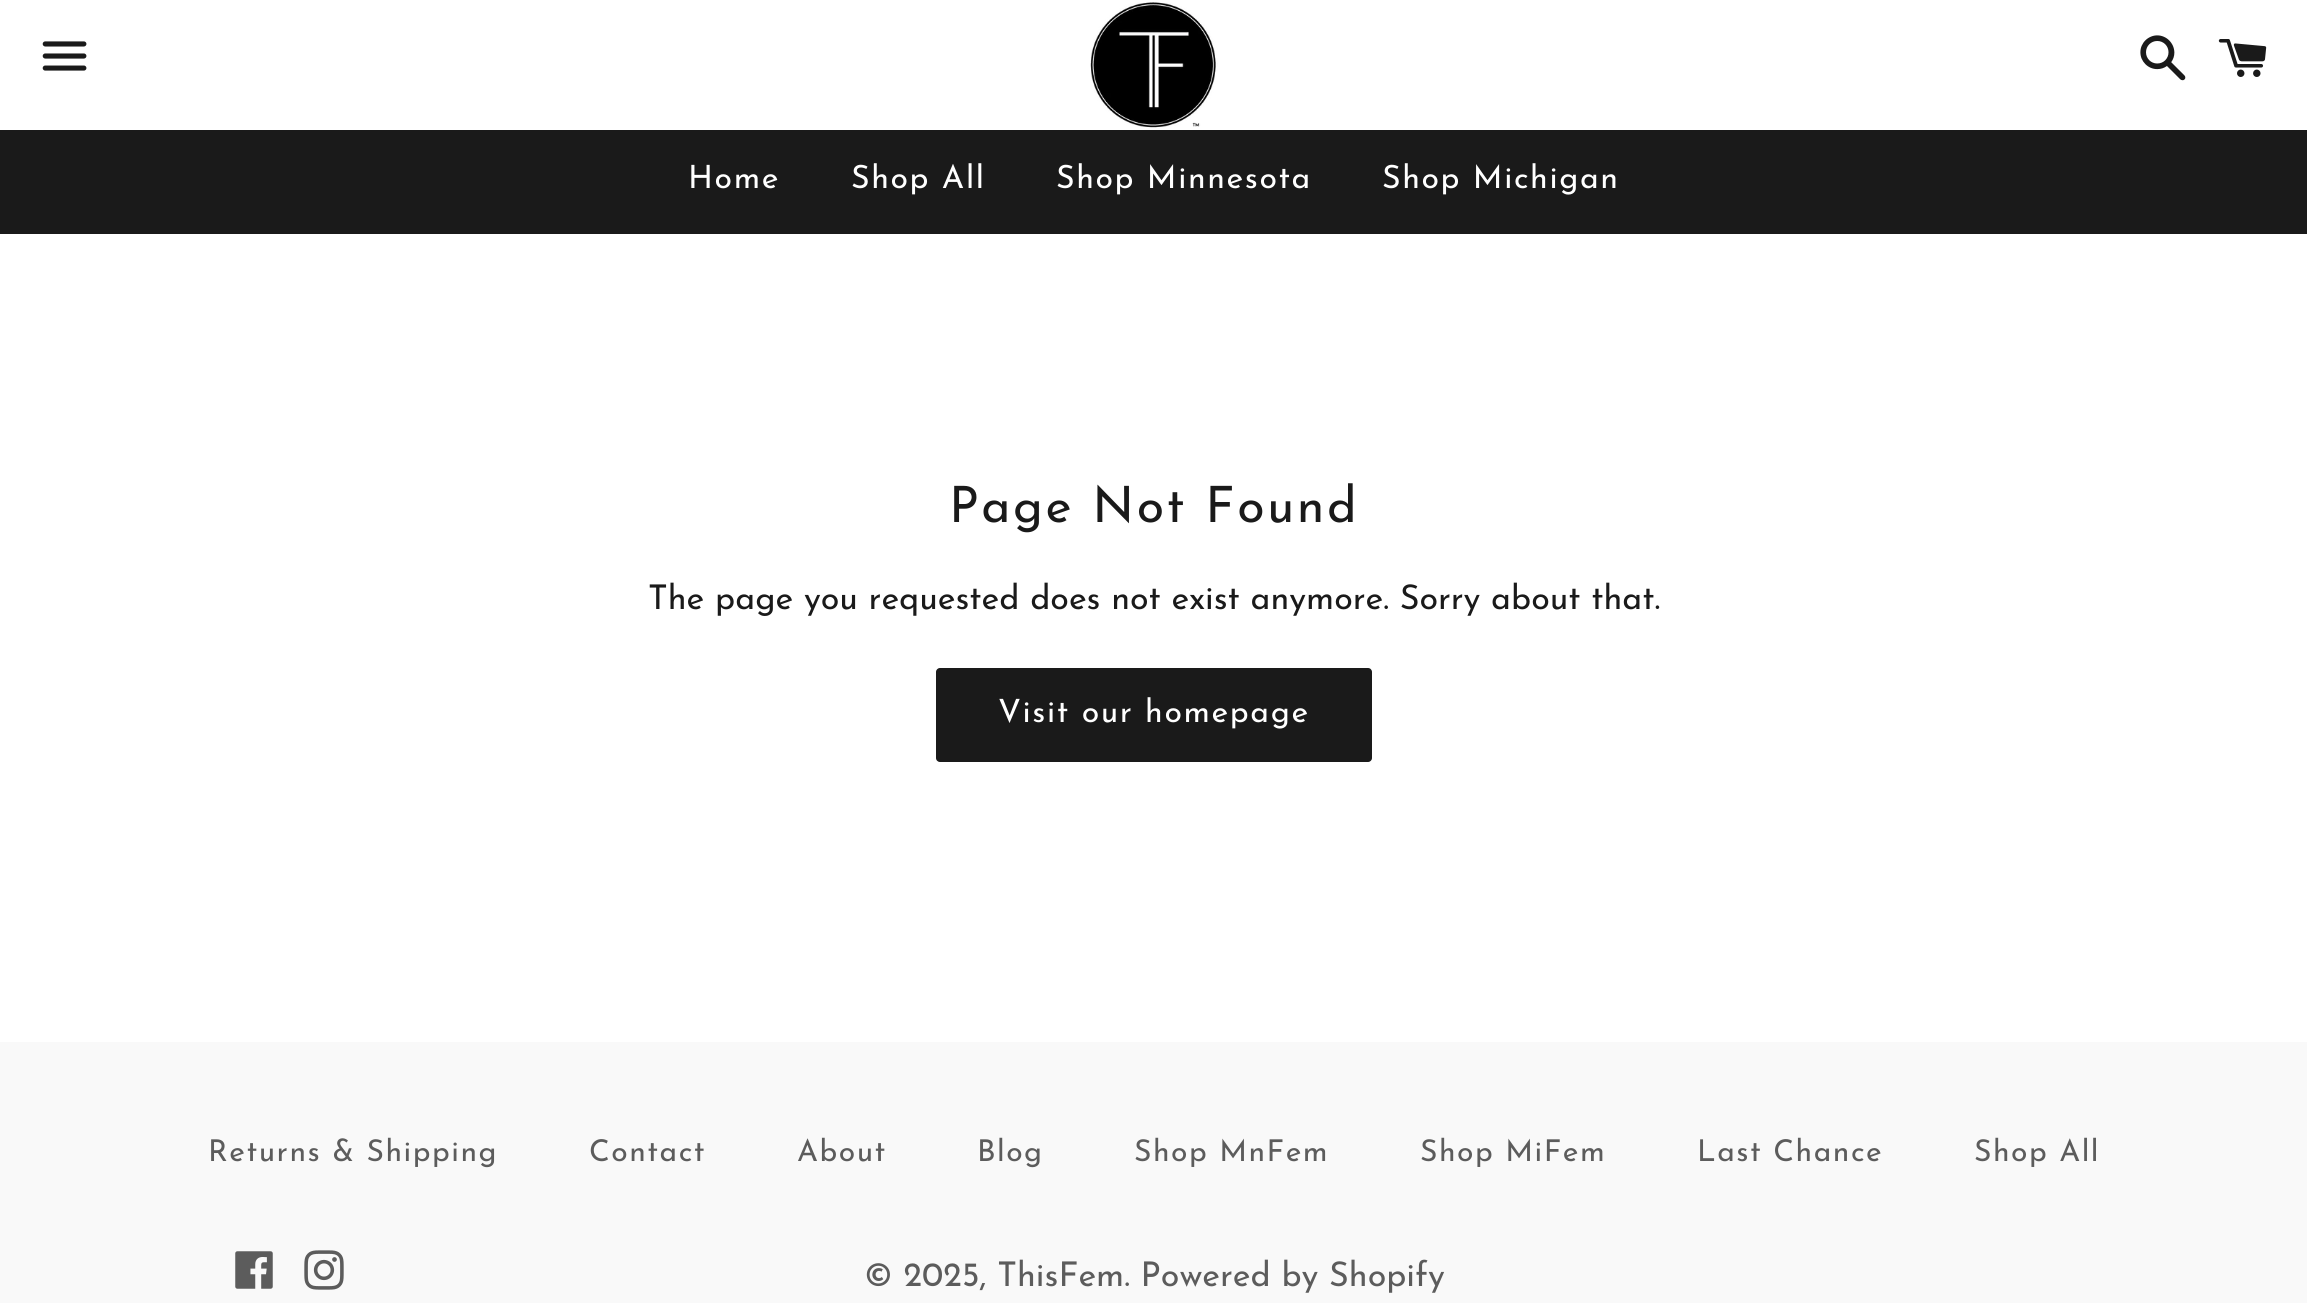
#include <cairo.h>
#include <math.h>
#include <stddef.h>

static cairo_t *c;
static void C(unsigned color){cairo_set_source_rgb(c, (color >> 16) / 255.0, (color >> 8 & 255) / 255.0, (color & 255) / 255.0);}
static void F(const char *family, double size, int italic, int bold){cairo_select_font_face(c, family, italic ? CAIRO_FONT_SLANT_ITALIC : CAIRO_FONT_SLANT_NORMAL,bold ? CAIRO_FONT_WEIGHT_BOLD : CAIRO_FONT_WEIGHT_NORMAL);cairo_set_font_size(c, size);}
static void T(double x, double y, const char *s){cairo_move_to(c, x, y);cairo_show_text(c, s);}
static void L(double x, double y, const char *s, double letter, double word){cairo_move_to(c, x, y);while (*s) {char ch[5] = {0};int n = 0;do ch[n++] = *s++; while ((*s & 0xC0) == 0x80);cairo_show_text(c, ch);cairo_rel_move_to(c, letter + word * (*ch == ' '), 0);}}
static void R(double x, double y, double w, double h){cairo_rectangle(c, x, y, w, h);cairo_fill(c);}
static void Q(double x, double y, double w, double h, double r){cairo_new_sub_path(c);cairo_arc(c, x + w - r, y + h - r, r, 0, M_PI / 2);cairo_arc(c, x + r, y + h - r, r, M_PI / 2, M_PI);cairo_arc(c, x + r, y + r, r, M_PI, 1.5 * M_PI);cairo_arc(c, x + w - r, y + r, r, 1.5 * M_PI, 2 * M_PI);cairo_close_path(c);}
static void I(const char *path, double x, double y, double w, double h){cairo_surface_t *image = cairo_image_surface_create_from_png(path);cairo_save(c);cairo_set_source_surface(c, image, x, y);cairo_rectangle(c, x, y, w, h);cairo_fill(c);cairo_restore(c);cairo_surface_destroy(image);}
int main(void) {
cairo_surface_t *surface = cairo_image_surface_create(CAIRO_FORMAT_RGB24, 2307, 1303);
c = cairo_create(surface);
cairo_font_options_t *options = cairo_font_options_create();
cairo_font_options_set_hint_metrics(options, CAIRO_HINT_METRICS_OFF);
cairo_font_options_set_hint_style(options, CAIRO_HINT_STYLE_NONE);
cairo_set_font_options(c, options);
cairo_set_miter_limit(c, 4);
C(0xffffff);
cairo_paint(c);
I("1.png",42,41,45,30);
I("2.png",1090,2,128,126);
I("3.png",2140,35,46,46);
I("4.png",2218,39,49,38);
C(0x1a1a1a);
R(0,130,2307,104);
F("Josefin Sans",32,0,0);
C(0xffffff);
L(688,188,"Home",1.6,0);
L(851,188,"Shop All",1.6,0);
L(1056,188,"Shop Minnesota",1.6,0);
L(1382,188,"Shop Michigan",1.6,0);
F("Josefin Sans",50,0,0);
C(0x1a1a1a);
L(949,522,"Page Not Found",2.5,0);
F("Josefin Sans",34,0,0);
T(648,609,"The page you requested does not exist anymore. Sorry about that.");
Q(936,668,436,94,4);
cairo_fill(c);
F("Josefin Sans",32,0,0);
C(0xffffff);
L(998,722,"Visit our homepage",1.6,0);
C(0xf9f9f9);
R(0,1042,2307,261);
F("Josefin Sans",30,0,0);
C(0x5c5c5c);
L(208,1161,"Returns & Shipping",1.5,0);
L(589,1161,"Contact",1.5,0);
L(797,1161,"About",1.5,0);
L(977,1161,"Blog",1.5,0);
L(1134,1161,"Shop MnFem",1.5,0);
L(1420,1161,"Shop MiFem",1.5,0);
L(1697,1161,"Last Chance",1.5,0);
L(1974,1161,"Shop All",1.5,0);
I("5.png",235,1251,38,38);
I("6.png",304,1250,40,40);
F("Josefin Sans",34,0,0);
T(864,1286,"© 2025, ThisFem. Powered by Shopify");
cairo_surface_write_to_png(surface, "o.png");
cairo_font_options_destroy(options);
cairo_destroy(c);
cairo_surface_destroy(surface);
return 0;
}
